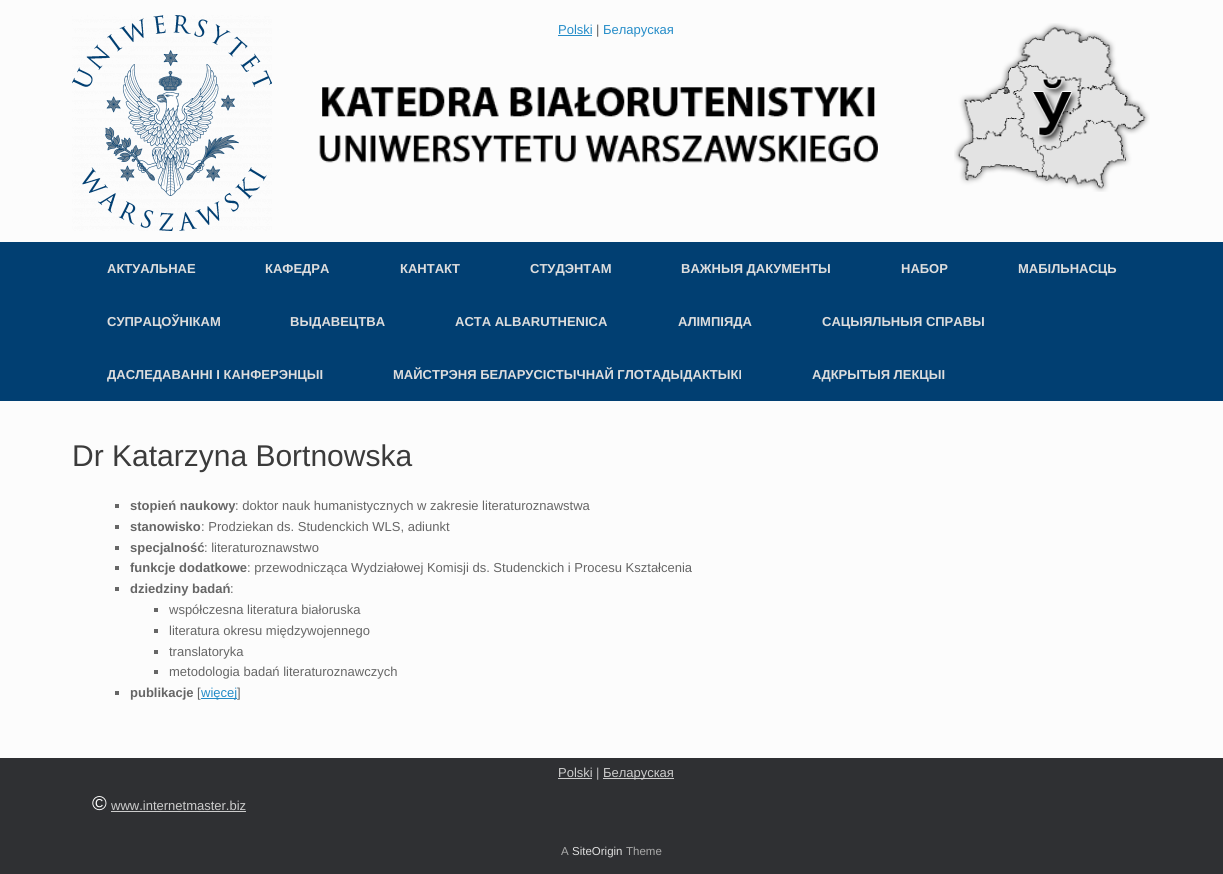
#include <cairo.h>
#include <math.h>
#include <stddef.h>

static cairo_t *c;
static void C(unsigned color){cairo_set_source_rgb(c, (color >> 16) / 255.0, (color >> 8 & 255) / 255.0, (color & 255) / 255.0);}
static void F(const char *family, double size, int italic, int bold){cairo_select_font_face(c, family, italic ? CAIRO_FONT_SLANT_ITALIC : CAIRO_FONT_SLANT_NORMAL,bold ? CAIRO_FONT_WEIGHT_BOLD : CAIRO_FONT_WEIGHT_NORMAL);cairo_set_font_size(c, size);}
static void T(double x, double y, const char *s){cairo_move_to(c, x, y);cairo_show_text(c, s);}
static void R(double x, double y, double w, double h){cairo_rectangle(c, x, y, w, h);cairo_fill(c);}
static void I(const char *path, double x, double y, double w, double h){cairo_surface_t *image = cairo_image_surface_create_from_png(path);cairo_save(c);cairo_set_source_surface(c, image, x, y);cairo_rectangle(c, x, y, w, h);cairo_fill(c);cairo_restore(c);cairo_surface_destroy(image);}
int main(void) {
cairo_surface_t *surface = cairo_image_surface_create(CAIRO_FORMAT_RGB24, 1223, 874);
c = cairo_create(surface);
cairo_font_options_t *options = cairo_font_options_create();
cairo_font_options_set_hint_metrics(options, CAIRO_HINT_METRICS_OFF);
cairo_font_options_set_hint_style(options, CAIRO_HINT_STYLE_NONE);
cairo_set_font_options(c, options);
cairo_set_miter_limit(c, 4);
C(0x2f3033);
cairo_paint(c);
C(0xfcfcfc);
R(0,0,1223,242);
I("1.png",72,15,200,216);
F("Liberation Sans",13,0,0);
C(0x248cc8);
T(558,34,"Polski");
R(558,35,34,1);
C(0x5e5e5e);
T(596,34,"|");
C(0x248cc8);
T(603,34,"Беларуская");
I("2.png",954,23,196,169);
I("3.png",319,87,559,76);
C(0x013f72);
R(0,242,1223,159);
F("Liberation Sans",13,0,1);
C(0xdddddd);
T(107,273,"АКТУАЛЬНАЕ");
T(265,273,"КАФЕДРА");
T(400,273,"КАНТАКТ");
T(530,273,"СТУДЭНТАМ");
T(681,273,"ВАЖНЫЯ ДАКУМЕНТЫ");
T(901,273,"НАБОР");
T(1018,273,"МАБІЛЬНАСЦЬ");
T(107,326,"СУПРАЦОЎНІКАМ");
T(290,326,"ВЫДАВЕЦТВА");
T(455,326,"ACTA ALBARUTHENICA");
T(678,326,"АЛІМПІЯДА");
T(822,326,"САЦЫЯЛЬНЫЯ СПРАВЫ");
T(107,379,"ДАСЛЕДАВАННІ І КАНФЕРЭНЦЫІ");
T(393,379,"МАЙСТРЭНЯ БЕЛАРУСІСТЫЧНАЙ ГЛОТАДЫДАКТЫКІ");
T(812,379,"АДКРЫТЫЯ ЛЕКЦЫІ");
C(0xfcfcfc);
R(0,401,1223,357);
F("Liberation Sans",30,0,0);
C(0x3b3b3b);
T(72,466,"Dr Katarzyna Bortnowska");
C(0x666666);
R(115,504,4,4);
F("Liberation Sans",13,0,1);
T(130,510,"stopień naukowy");
F("Liberation Sans",13,0,0);
T(235,510,": doktor nauk humanistycznych w zakresie literaturoznawstwa");
R(115,525,4,4);
F("Liberation Sans",13,0,1);
T(130,531,"stanowisko");
F("Liberation Sans",13,0,0);
T(201,531,": Prodziekan ds. Studenckich WLS, adiunkt");
R(115,546,4,4);
F("Liberation Sans",13,0,1);
T(130,552,"specjalność");
F("Liberation Sans",13,0,0);
T(204,552,": literaturoznawstwo");
R(115,566,4,4);
F("Liberation Sans",13,0,1);
T(130,572,"funkcje dodatkowe");
F("Liberation Sans",13,0,0);
T(247,572,": przewodnicząca Wydziałowej Komisji ds. Studenckich i Procesu Kształcenia");
R(115,587,4,4);
F("Liberation Sans",13,0,1);
T(130,593,"dziedziny badań");
F("Liberation Sans",13,0,0);
T(230,593,":");
R(154,608,4,4);
T(169,614,"współczesna literatura białoruska");
R(154,629,4,4);
T(169,635,"literatura okresu międzywojennego");
R(154,650,4,4);
T(169,656,"translatoryka");
R(154,670,4,4);
T(169,676,"metodologia badań literaturoznawczych");
R(115,691,4,4);
F("Liberation Sans",13,0,1);
T(130,697,"publikacje");
F("Liberation Sans",13,0,0);
T(197,697,"[");
C(0x248cc8);
R(201,698,36,1);
T(201,697,"więcej");
C(0x666666);
T(237,697,"]");
C(0xcccccc);
T(558,777,"Polski");
R(558,778,34,1);
C(0xb9b9b9);
T(596,777,"|");
C(0xcccccc);
R(603,778,71,1);
T(603,777,"Беларуская");
F("Liberation Sans",20,0,0);
C(0xffffff);
T(92,810,"©");
F("Liberation Sans",13,0,0);
C(0xcccccc);
T(111,810,"www.internetmaster.biz");
R(111,811,135,1);
F("Liberation Sans",11.5,0,0);
C(0xaaaaaa);
T(561,855,"A");
C(0xdddddd);
T(572,855,"SiteOrigin");
C(0xaaaaaa);
T(626,855,"Theme");
cairo_surface_write_to_png(surface, "o.png");
cairo_font_options_destroy(options);
cairo_destroy(c);
cairo_surface_destroy(surface);
return 0;
}
